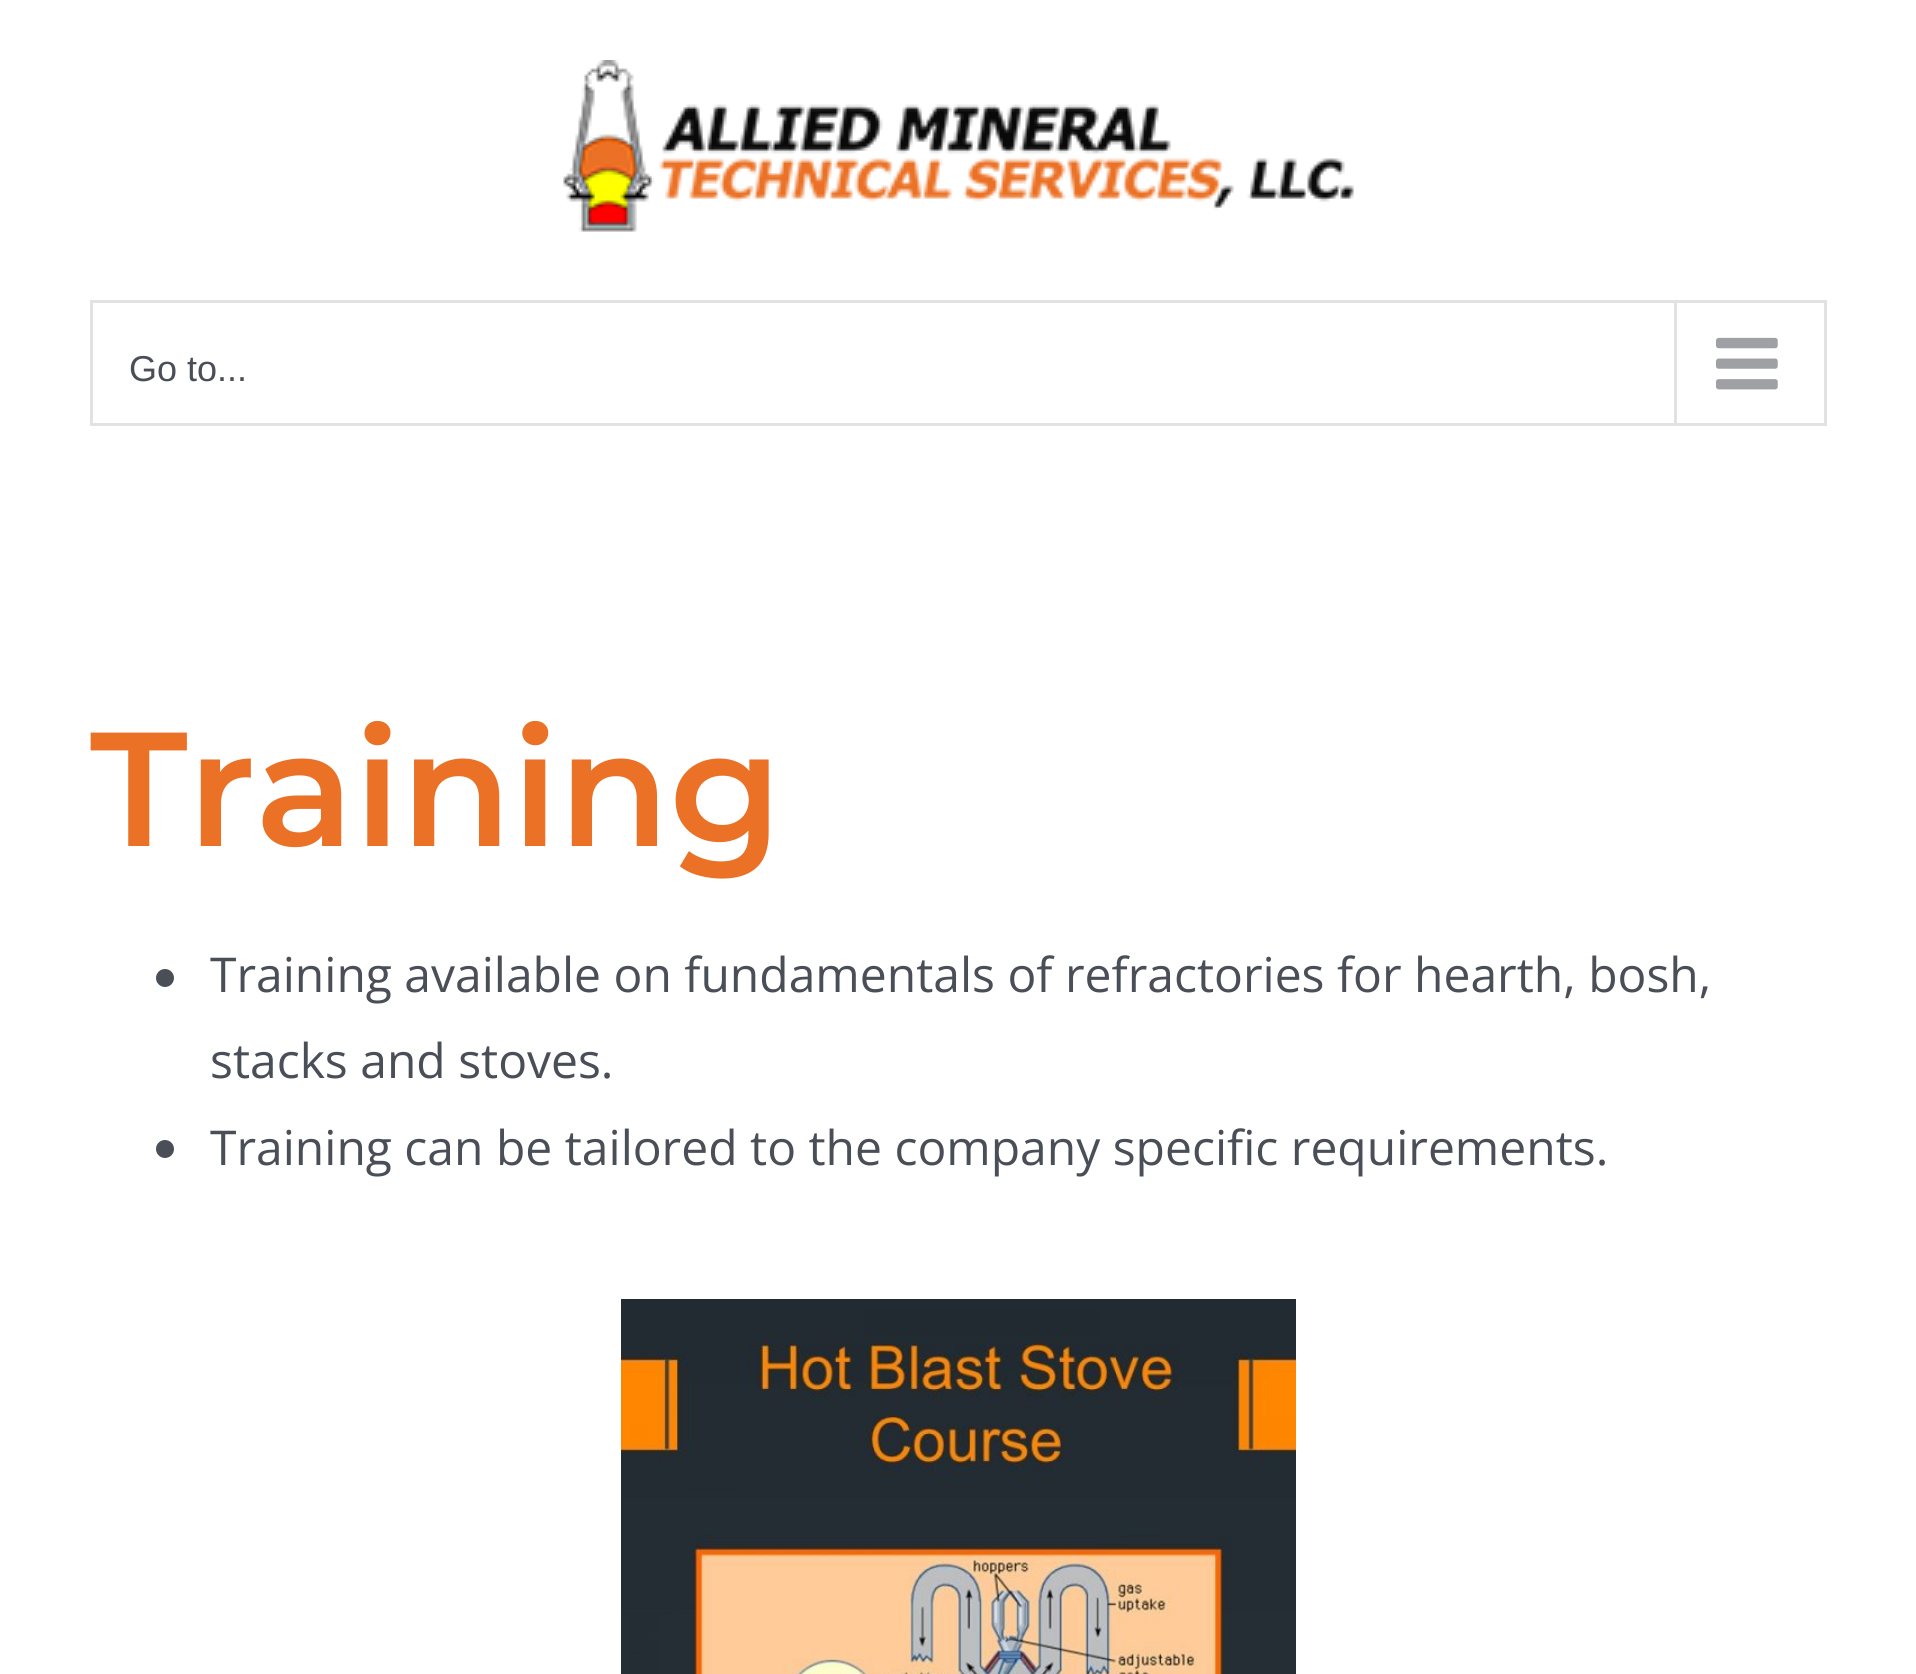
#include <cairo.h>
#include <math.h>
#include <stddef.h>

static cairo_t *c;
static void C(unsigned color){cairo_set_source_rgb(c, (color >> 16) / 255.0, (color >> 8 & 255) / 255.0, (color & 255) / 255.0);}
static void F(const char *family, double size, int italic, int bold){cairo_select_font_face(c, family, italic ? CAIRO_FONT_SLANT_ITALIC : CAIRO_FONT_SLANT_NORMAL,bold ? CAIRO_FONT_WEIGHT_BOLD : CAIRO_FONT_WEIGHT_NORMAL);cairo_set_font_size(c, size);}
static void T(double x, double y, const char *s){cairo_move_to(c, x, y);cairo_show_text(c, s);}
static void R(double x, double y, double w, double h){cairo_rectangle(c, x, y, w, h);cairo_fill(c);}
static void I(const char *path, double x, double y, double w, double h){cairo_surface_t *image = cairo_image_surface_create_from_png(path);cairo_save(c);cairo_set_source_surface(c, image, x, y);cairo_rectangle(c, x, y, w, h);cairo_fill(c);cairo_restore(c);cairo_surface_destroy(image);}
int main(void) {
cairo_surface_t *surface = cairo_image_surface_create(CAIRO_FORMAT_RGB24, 1916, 1674);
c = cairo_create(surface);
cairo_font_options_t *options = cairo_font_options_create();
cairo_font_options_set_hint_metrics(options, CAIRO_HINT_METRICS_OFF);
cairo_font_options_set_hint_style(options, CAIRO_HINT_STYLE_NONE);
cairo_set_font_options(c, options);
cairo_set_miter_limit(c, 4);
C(0xffffff);
cairo_paint(c);
I("1.png",563,60,791,172);
cairo_rectangle(c,91.5,301.5,1734,123);
C(0xe2e2e2);
cairo_set_line_width(c,3);
cairo_stroke(c);
F("Liberation Sans",36,0,0);
C(0x4a4e57);
T(129,381,"Go to...");
C(0xe2e2e2);
R(1674,303,3,120);
I("2.png",1716,337,62,53);
F("Montserrat SemiBold",162,0,0);
C(0xea7125);
T(90,846,"Training");
C(0x4a4e57);
cairo_new_path(c);
cairo_arc(c,165,978,9,0,2 * M_PI);
cairo_fill(c);
F("Open Sans",48,0,0);
T(210,992,"Training available on fundamentals of refractories for hearth, bosh,");
T(210,1078,"stacks and stoves.");
cairo_new_path(c);
cairo_arc(c,165,1149,9,0,2 * M_PI);
cairo_fill(c);
T(210,1165,"Training can be tailored to the company specific requirements.");
I("3.png",621,1299,675,375);
cairo_surface_write_to_png(surface, "o.png");
cairo_font_options_destroy(options);
cairo_destroy(c);
cairo_surface_destroy(surface);
return 0;
}
